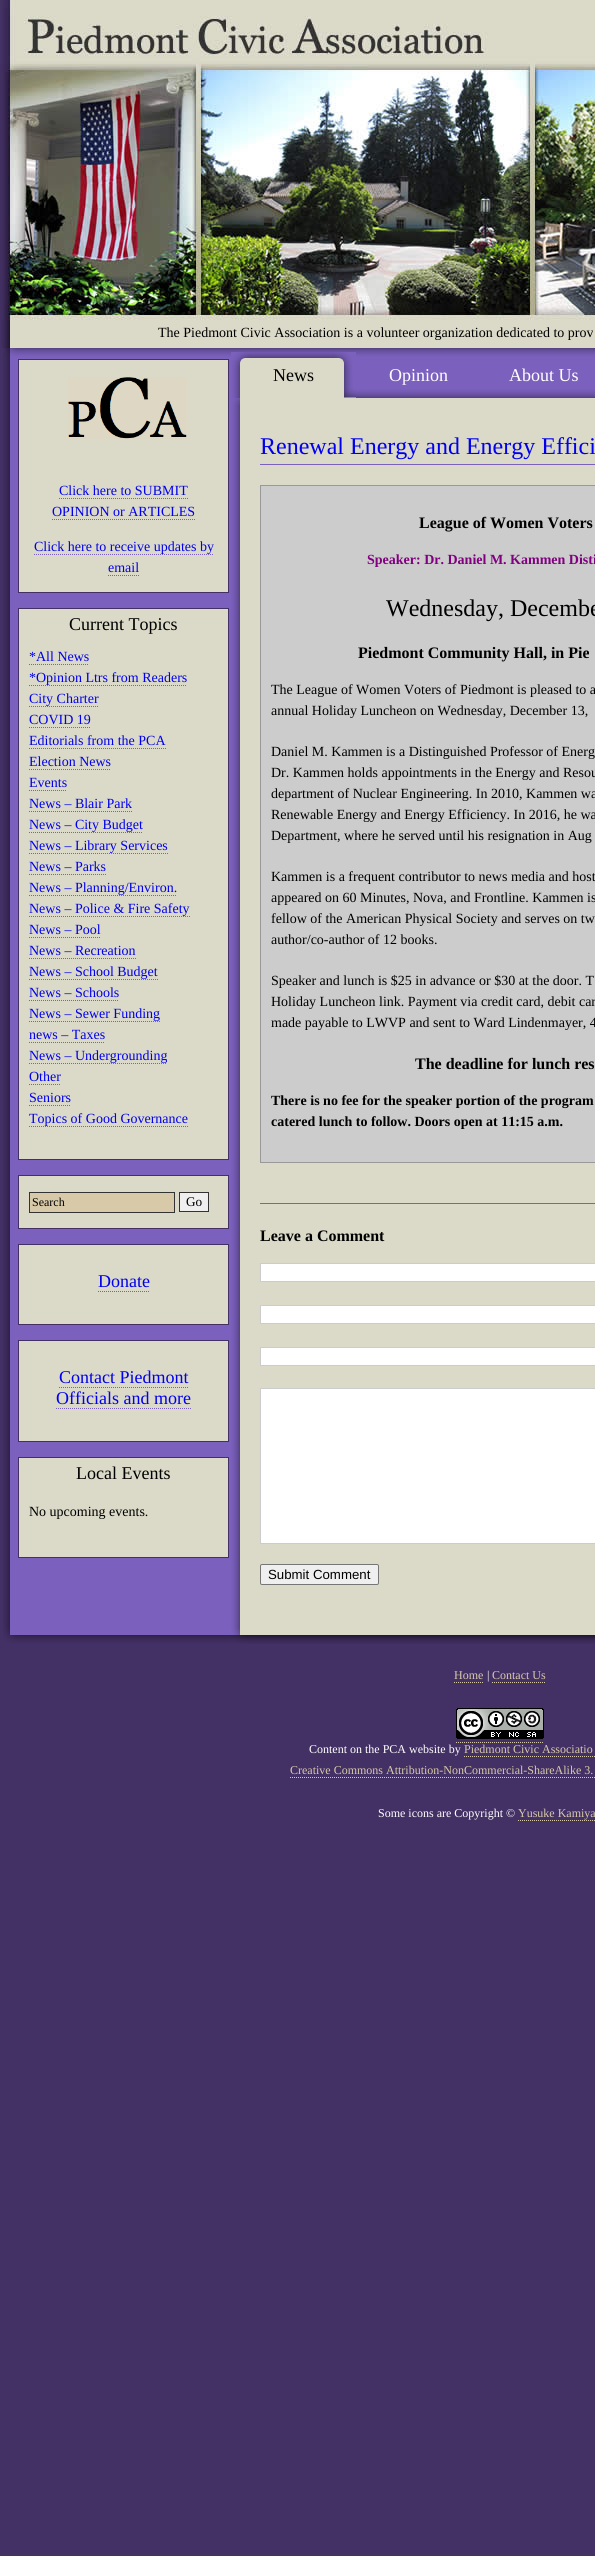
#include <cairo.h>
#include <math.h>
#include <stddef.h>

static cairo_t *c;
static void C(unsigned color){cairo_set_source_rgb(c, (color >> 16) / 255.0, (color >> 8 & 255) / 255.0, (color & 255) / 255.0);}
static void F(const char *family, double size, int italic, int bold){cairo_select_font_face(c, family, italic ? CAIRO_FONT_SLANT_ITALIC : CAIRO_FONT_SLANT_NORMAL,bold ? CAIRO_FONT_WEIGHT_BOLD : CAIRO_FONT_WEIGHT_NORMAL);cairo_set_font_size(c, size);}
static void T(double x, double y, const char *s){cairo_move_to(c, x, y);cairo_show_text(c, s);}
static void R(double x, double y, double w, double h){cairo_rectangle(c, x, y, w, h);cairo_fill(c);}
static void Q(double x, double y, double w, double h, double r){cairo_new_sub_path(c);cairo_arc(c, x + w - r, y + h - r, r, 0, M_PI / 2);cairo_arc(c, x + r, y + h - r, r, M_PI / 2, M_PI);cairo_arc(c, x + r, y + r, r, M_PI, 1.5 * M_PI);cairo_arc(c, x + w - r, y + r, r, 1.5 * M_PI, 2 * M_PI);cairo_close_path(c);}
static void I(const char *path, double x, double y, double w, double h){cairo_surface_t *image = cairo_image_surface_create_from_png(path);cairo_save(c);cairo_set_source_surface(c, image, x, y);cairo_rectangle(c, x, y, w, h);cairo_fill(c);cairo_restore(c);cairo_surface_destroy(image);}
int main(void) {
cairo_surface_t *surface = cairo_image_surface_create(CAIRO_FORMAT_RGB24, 595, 2556);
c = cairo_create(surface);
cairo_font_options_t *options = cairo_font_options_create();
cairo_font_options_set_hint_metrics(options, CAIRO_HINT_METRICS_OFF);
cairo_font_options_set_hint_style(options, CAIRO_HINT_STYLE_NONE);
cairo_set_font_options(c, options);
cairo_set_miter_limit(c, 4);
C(0x433065);
cairo_paint(c);
I("1.png",3,348,592,1280);
I("2.png",0,0,595,320);
I("3.png",0,320,595,28);
F("Liberation Serif",14,0,0);
C(0x000000);
T(158,337,"The Piedmont Civic Association is a volunteer organization dedicated to prov");
I("4.png",5,348,590,57);
I("5.png",231,352,125,46);
F("Liberation Serif",18,0,0);
T(273,381,"News");
C(0xffffff);
T(389,381,"Opinion");
T(509,381,"About Us");
C(0xdbd9c7);
cairo_rectangle(c,18.5,359.5,210,233);
cairo_fill_preserve(c);
C(0x433065);
cairo_set_line_width(c,1);
cairo_stroke(c);
I("6.png",68,377,119,62);
F("Liberation Serif",14,0,0);
C(0x0000ee);
T(59,495,"Click here to SUBMIT");
cairo_new_path(c);
cairo_move_to(c,59,498.5);
cairo_line_to(c,188,498.5);
C(0x7b60bd);
cairo_set_dash(c,(double[]){1,1},2,0);
cairo_stroke(c);
C(0x0000ee);
T(52,516,"OPINION or ARTICLES");
cairo_new_path(c);
cairo_move_to(c,52,519.5);
cairo_line_to(c,195,519.5);
C(0x7b60bd);
cairo_stroke(c);
C(0x0000ee);
T(34,551,"Click here to receive updates by");
cairo_new_path(c);
cairo_move_to(c,34,554.5);
cairo_line_to(c,213,554.5);
C(0x7b60bd);
cairo_stroke(c);
C(0x0000ee);
T(108,572,"email");
cairo_new_path(c);
cairo_move_to(c,108,575.5);
cairo_line_to(c,139,575.5);
C(0x7b60bd);
cairo_stroke(c);
C(0xdbd9c7);
cairo_rectangle(c,18.5,608.5,210,551);
cairo_fill_preserve(c);
C(0x433065);
cairo_set_dash(c,NULL,0,0);
cairo_stroke(c);
F("Liberation Serif",18,0,0);
C(0x000000);
T(69,630,"Current Topics");
F("Liberation Serif",14,0,0);
C(0x0000ee);
T(29,661,"*All News");
cairo_new_path(c);
cairo_move_to(c,29,664.5);
cairo_line_to(c,89,664.5);
C(0x7b60bd);
cairo_set_dash(c,(double[]){1,1},2,0);
cairo_stroke(c);
C(0x0000ee);
T(29,682,"*Opinion Ltrs from Readers");
cairo_new_path(c);
cairo_move_to(c,29,685.5);
cairo_line_to(c,187,685.5);
C(0x7b60bd);
cairo_stroke(c);
C(0x0000ee);
T(29,703,"City Charter");
cairo_new_path(c);
cairo_move_to(c,29,706.5);
cairo_line_to(c,99,706.5);
C(0x7b60bd);
cairo_stroke(c);
C(0x0000ee);
T(29,724,"COVID 19");
cairo_new_path(c);
cairo_move_to(c,29,727.5);
cairo_line_to(c,91,727.5);
C(0x7b60bd);
cairo_stroke(c);
C(0x0000ee);
T(29,745,"Editorials from the PCA");
cairo_new_path(c);
cairo_move_to(c,29,748.5);
cairo_line_to(c,166,748.5);
C(0x7b60bd);
cairo_stroke(c);
C(0x0000ee);
T(29,766,"Election News");
cairo_new_path(c);
cairo_move_to(c,29,769.5);
cairo_line_to(c,111,769.5);
C(0x7b60bd);
cairo_stroke(c);
C(0x0000ee);
T(29,787,"Events");
cairo_new_path(c);
cairo_move_to(c,29,790.5);
cairo_line_to(c,67,790.5);
C(0x7b60bd);
cairo_stroke(c);
C(0x0000ee);
T(29,808,"News – Blair Park");
cairo_new_path(c);
cairo_move_to(c,29,811.5);
cairo_line_to(c,132,811.5);
C(0x7b60bd);
cairo_stroke(c);
C(0x0000ee);
T(29,829,"News – City Budget");
cairo_new_path(c);
cairo_move_to(c,29,832.5);
cairo_line_to(c,143,832.5);
C(0x7b60bd);
cairo_stroke(c);
C(0x0000ee);
T(29,850,"News – Library Services");
cairo_new_path(c);
cairo_move_to(c,29,853.5);
cairo_line_to(c,168,853.5);
C(0x7b60bd);
cairo_stroke(c);
C(0x0000ee);
T(29,871,"News – Parks");
cairo_new_path(c);
cairo_move_to(c,29,874.5);
cairo_line_to(c,106,874.5);
C(0x7b60bd);
cairo_stroke(c);
C(0x0000ee);
T(29,892,"News – Planning/Environ.");
cairo_new_path(c);
cairo_move_to(c,29,895.5);
cairo_line_to(c,177,895.5);
C(0x7b60bd);
cairo_stroke(c);
C(0x0000ee);
T(29,913,"News – Police & Fire Safety");
cairo_new_path(c);
cairo_move_to(c,29,916.5);
cairo_line_to(c,190,916.5);
C(0x7b60bd);
cairo_stroke(c);
C(0x0000ee);
T(29,934,"News – Pool");
cairo_new_path(c);
cairo_move_to(c,29,937.5);
cairo_line_to(c,101,937.5);
C(0x7b60bd);
cairo_stroke(c);
C(0x0000ee);
T(29,955,"News – Recreation");
cairo_new_path(c);
cairo_move_to(c,29,958.5);
cairo_line_to(c,136,958.5);
C(0x7b60bd);
cairo_stroke(c);
C(0x0000ee);
T(29,976,"News – School Budget");
cairo_new_path(c);
cairo_move_to(c,29,979.5);
cairo_line_to(c,158,979.5);
C(0x7b60bd);
cairo_stroke(c);
C(0x0000ee);
T(29,997,"News – Schools");
cairo_new_path(c);
cairo_move_to(c,29,1000.5);
cairo_line_to(c,119,1000.5);
C(0x7b60bd);
cairo_stroke(c);
C(0x0000ee);
T(29,1018,"News – Sewer Funding");
cairo_new_path(c);
cairo_move_to(c,29,1021.5);
cairo_line_to(c,160,1021.5);
C(0x7b60bd);
cairo_stroke(c);
C(0x0000ee);
T(29,1039,"news – Taxes");
cairo_new_path(c);
cairo_move_to(c,29,1042.5);
cairo_line_to(c,105,1042.5);
C(0x7b60bd);
cairo_stroke(c);
C(0x0000ee);
T(29,1060,"News – Undergrounding");
cairo_new_path(c);
cairo_move_to(c,29,1063.5);
cairo_line_to(c,167,1063.5);
C(0x7b60bd);
cairo_stroke(c);
C(0x0000ee);
T(29,1081,"Other");
cairo_new_path(c);
cairo_move_to(c,29,1084.5);
cairo_line_to(c,61,1084.5);
C(0x7b60bd);
cairo_stroke(c);
C(0x0000ee);
T(29,1102,"Seniors");
cairo_new_path(c);
cairo_move_to(c,29,1105.5);
cairo_line_to(c,71,1105.5);
C(0x7b60bd);
cairo_stroke(c);
C(0x0000ee);
T(29,1123,"Topics of Good Governance");
cairo_new_path(c);
cairo_move_to(c,29,1126.5);
cairo_line_to(c,188,1126.5);
C(0x7b60bd);
cairo_stroke(c);
C(0xdbd9c7);
cairo_rectangle(c,18.5,1175.5,210,53);
cairo_fill_preserve(c);
C(0x433065);
cairo_set_dash(c,NULL,0,0);
cairo_stroke(c);
C(0xd8caa8);
cairo_rectangle(c,29.5,1192.5,145,20);
cairo_fill_preserve(c);
C(0x333333);
cairo_stroke(c);
F("Liberation Serif",12,0,0);
C(0x000000);
T(32,1206,"Search");
C(0xefefef);
cairo_rectangle(c,179.5,1192.5,29,19);
cairo_fill_preserve(c);
C(0x333333);
cairo_stroke(c);
F("Liberation Serif",13.25,0,0);
C(0x000000);
T(186,1206,"Go");
C(0xdbd9c7);
cairo_rectangle(c,18.5,1244.5,210,80);
cairo_fill_preserve(c);
C(0x433065);
cairo_stroke(c);
F("Liberation Serif",18,0,0);
C(0x0000ee);
T(98,1287,"Donate");
cairo_new_path(c);
cairo_move_to(c,98,1291.5);
cairo_line_to(c,149,1291.5);
C(0x7b60bd);
cairo_set_dash(c,(double[]){1,1},2,0);
cairo_stroke(c);
C(0xdbd9c7);
cairo_rectangle(c,18.5,1340.5,210,101);
cairo_fill_preserve(c);
C(0x433065);
cairo_set_dash(c,NULL,0,0);
cairo_stroke(c);
C(0x0000ee);
T(59,1383,"Contact Piedmont");
cairo_new_path(c);
cairo_move_to(c,59,1387.5);
cairo_line_to(c,188,1387.5);
C(0x7b60bd);
cairo_set_dash(c,(double[]){1,1},2,0);
cairo_stroke(c);
C(0x0000ee);
T(56,1404,"Officials and more");
cairo_new_path(c);
cairo_move_to(c,56,1408.5);
cairo_line_to(c,191,1408.5);
C(0x7b60bd);
cairo_stroke(c);
C(0xdbd9c7);
cairo_rectangle(c,18.5,1457.5,210,100);
cairo_fill_preserve(c);
C(0x433065);
cairo_set_dash(c,NULL,0,0);
cairo_stroke(c);
C(0x000000);
T(76,1479,"Local Events");
F("Liberation Serif",14,0,0);
T(29,1516,"No upcoming events.");
F("Liberation Serif",24,0,0);
C(0x0000ee);
T(260,454,"Renewal Energy and Energy Effici");
C(0x7b60bd);
R(260,464,335,1);
C(0xcccccc);
cairo_rectangle(c,260.5,485.5,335,677);
cairo_fill_preserve(c);
C(0x999999);
cairo_stroke(c);
F("Liberation Serif",16,0,1);
C(0x000000);
T(419,528,"League of Women Voters");
F("Liberation Serif",14,0,1);
C(0x800080);
T(367,564,"Speaker: Dr. Daniel M. Kammen Disti");
F("Liberation Serif",24,0,0);
C(0x000000);
T(386,616,"Wednesday, Decembe");
F("Liberation Serif",16,0,1);
T(358,658,"Piedmont Community Hall, in Pie");
F("Liberation Serif",14,0,0);
T(271,694,"The League of Women Voters of Piedmont is pleased to a");
T(271,715,"annual Holiday Luncheon on Wednesday, December 13,");
T(271,756,"Daniel M. Kammen is a Distinguished Professor of Energ");
T(271,777,"Dr. Kammen holds appointments in the Energy and Resou");
T(271,798,"department of Nuclear Engineering. In 2010, Kammen wa");
T(271,819,"Renewable Energy and Energy Efficiency. In 2016, he wa");
T(271,840,"Department, where he served until his resignation in Aug");
T(271,881,"Kammen is a frequent contributor to news media and host");
T(271,902,"appeared on 60 Minutes, Nova, and Frontline. Kammen is");
T(271,923,"fellow of the American Physical Society and serves on tw");
T(271,944,"author/co-author of 12 books.");
T(271,985,"Speaker and lunch is $25 in advance or $30 at the door. T");
T(271,1006,"Holiday Luncheon link. Payment via credit card, debit car");
T(271,1027,"made payable to LWVP and sent to Ward Lindenmayer, 4");
F("Liberation Serif",16,0,1);
T(415,1069,"The deadline for lunch res");
F("Liberation Serif",14,0,1);
T(271,1105,"There is no fee for the speaker portion of the program");
T(271,1126,"catered lunch to follow. Doors open at 11:15 a.m.");
C(0x7b60bd);
R(260,1203,335,1);
F("Liberation Serif",16,0,1);
C(0x000000);
T(260,1241,"Leave a Comment");
C(0xffffff);
cairo_rectangle(c,260.5,1263.5,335,18);
cairo_fill_preserve(c);
C(0xcccccc);
cairo_stroke(c);
C(0xffffff);
cairo_rectangle(c,260.5,1305.5,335,18);
cairo_fill_preserve(c);
C(0xcccccc);
cairo_stroke(c);
C(0xffffff);
cairo_rectangle(c,260.5,1347.5,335,18);
cairo_fill_preserve(c);
C(0xcccccc);
cairo_stroke(c);
C(0xffffff);
cairo_rectangle(c,260.5,1388.5,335,155);
cairo_fill_preserve(c);
C(0xcccccc);
cairo_stroke(c);
C(0xefefef);
Q(260.5,1564.5,118,20,1.5);
cairo_fill_preserve(c);
C(0x767676);
cairo_stroke(c);
F("Liberation Sans",13.25,0,0);
C(0x000000);
T(268,1579,"Submit Comment");
I("7.png",3,1628,592,97);
F("Liberation Serif",12,0,0);
C(0xd8caa8);
T(454,1679,"Home");
cairo_new_path(c);
cairo_move_to(c,454,1682.5);
cairo_line_to(c,484,1682.5);
cairo_set_dash(c,(double[]){1,1},2,0);
cairo_stroke(c);
C(0xffffff);
T(487,1679,"|");
C(0xd8caa8);
T(492,1679,"Contact Us");
cairo_new_path(c);
cairo_move_to(c,492,1682.5);
cairo_line_to(c,546,1682.5);
cairo_stroke(c);
I("8.png",456,1708,88,31);
cairo_new_path(c);
cairo_move_to(c,456,1742.5);
cairo_line_to(c,544,1742.5);
cairo_stroke(c);
C(0xffffff);
T(309,1753,"Content on the PCA website by");
C(0xd8caa8);
T(464,1753,"Piedmont Civic Associatio");
cairo_new_path(c);
cairo_move_to(c,464,1756.5);
cairo_line_to(c,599,1756.5);
cairo_stroke(c);
T(290,1774,"Creative Commons Attribution-NonCommercial-ShareAlike 3.");
cairo_new_path(c);
cairo_move_to(c,290,1777.5);
cairo_line_to(c,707,1777.5);
cairo_stroke(c);
C(0xffffff);
T(378,1817,"Some icons are Copyright ©");
C(0xd8caa8);
T(518,1817,"Yusuke Kamiya");
cairo_new_path(c);
cairo_move_to(c,518,1820.5);
cairo_line_to(c,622,1820.5);
cairo_stroke(c);
cairo_surface_write_to_png(surface, "o.png");
cairo_font_options_destroy(options);
cairo_destroy(c);
cairo_surface_destroy(surface);
return 0;
}
